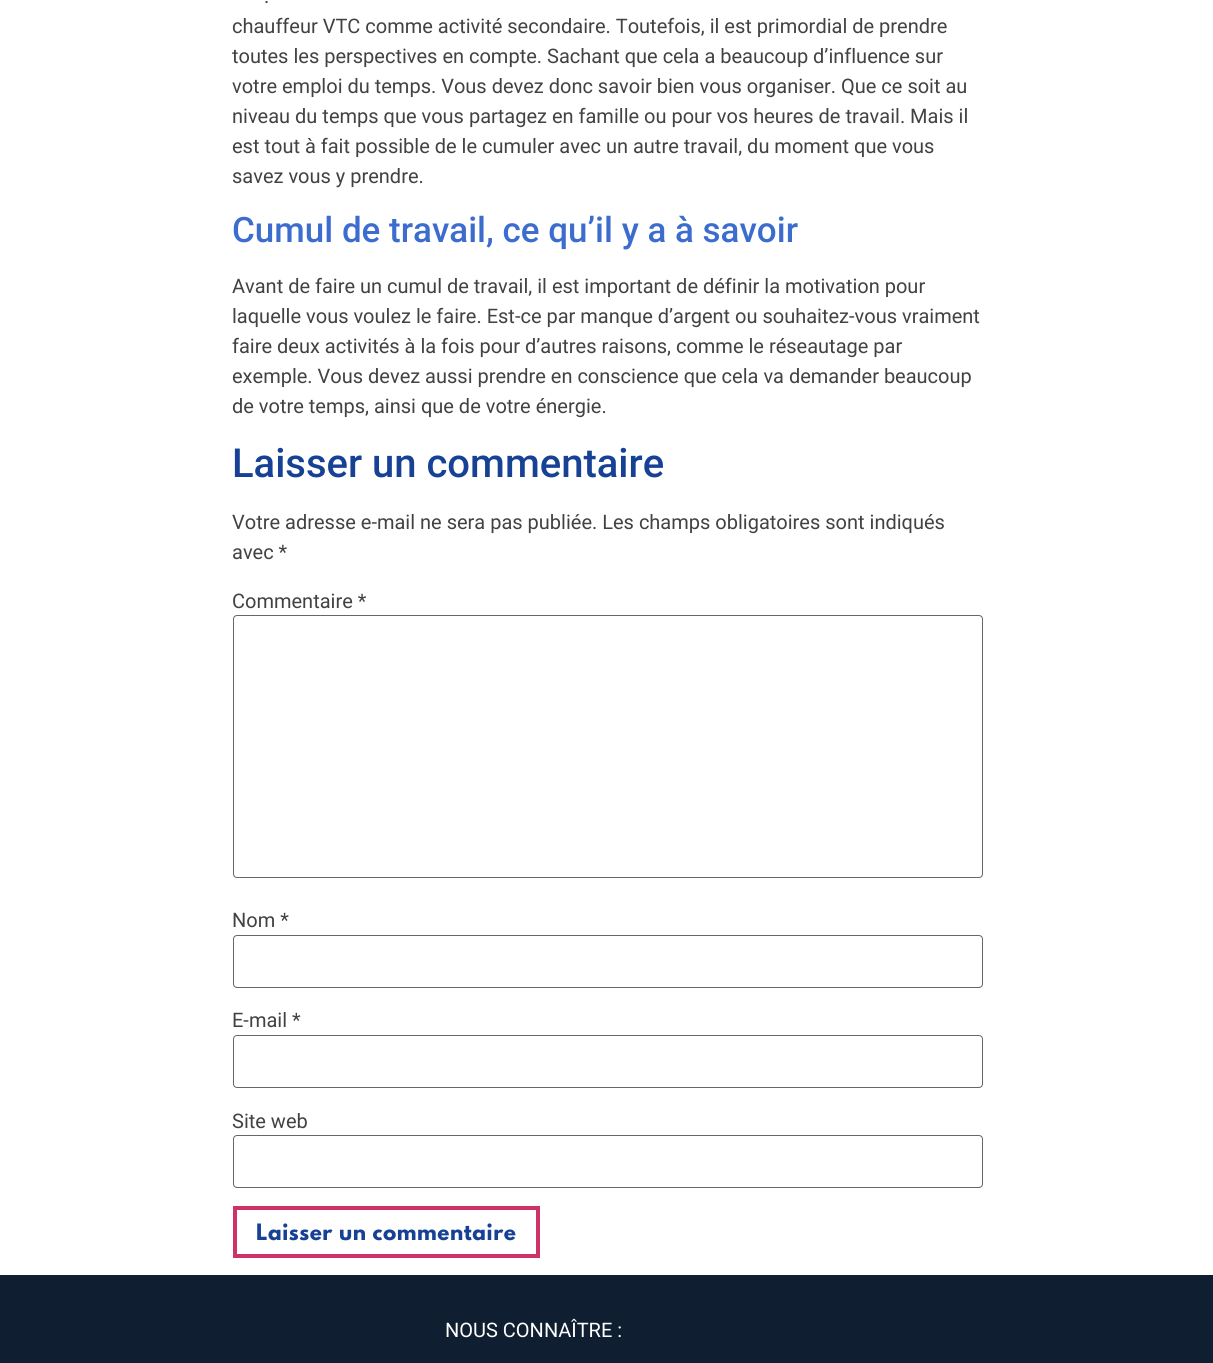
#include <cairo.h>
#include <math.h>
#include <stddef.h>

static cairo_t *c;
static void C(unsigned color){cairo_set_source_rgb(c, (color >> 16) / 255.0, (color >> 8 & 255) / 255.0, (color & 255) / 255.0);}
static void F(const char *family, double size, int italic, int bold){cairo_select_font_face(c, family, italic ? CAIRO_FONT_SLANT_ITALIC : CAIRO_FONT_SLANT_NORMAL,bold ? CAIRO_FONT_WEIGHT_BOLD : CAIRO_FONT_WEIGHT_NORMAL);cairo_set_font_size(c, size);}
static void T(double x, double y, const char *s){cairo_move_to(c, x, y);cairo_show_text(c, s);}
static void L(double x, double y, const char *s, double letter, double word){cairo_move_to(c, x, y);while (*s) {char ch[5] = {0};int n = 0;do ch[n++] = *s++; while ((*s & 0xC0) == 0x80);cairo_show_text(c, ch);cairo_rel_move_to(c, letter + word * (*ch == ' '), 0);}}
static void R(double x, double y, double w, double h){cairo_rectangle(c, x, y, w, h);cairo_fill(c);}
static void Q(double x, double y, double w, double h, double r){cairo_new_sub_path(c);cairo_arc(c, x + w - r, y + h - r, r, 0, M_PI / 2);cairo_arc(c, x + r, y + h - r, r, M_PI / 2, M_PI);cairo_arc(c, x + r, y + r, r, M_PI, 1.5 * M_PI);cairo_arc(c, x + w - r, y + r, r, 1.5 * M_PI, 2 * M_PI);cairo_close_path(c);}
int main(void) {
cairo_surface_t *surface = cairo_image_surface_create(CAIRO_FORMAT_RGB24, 1213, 1363);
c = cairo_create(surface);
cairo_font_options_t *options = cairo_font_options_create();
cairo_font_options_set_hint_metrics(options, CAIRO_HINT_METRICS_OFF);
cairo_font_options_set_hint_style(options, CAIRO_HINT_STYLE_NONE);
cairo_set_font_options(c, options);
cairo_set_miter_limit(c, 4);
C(0xffffff);
cairo_paint(c);
F("Roboto",20,0,0);
C(0x424242);
T(264,3,".");
T(232,33,"chauffeur VTC comme activité secondaire. Toutefois, il est primordial de prendre");
T(232,63,"toutes les perspectives en compte. Sachant que cela a beaucoup d’influence sur");
T(232,93,"votre emploi du temps. Vous devez donc savoir bien vous organiser. Que ce soit au");
T(232,123,"niveau du temps que vous partagez en famille ou pour vos heures de travail. Mais il");
T(232,153,"est tout à fait possible de le cumuler avec un autre travail, du moment que vous");
T(232,183,"savez vous y prendre.");
F("Roboto Medium",35,0,0);
C(0x3c6dce);
T(232,242,"Cumul de travail, ce qu’il y a à savoir");
F("Roboto",20,0,0);
C(0x424242);
T(232,293,"Avant de faire un cumul de travail, il est important de définir la motivation pour");
T(232,323,"laquelle vous voulez le faire. Est-ce par manque d’argent ou souhaitez-vous vraiment");
T(232,353,"faire deux activités à la fois pour d’autres raisons, comme le réseautage par");
T(232,383,"exemple. Vous devez aussi prendre en conscience que cela va demander beaucoup");
T(232,413,"de votre temps, ainsi que de votre énergie.");
F("Roboto Medium",40,0,0);
C(0x174195);
T(232,477,"Laisser un commentaire");
F("Roboto",20,0,0);
C(0x424242);
T(232,529,"Votre adresse e-mail ne sera pas publiée. Les champs obligatoires sont indiqués");
T(232,559,"avec *");
T(232,608,"Commentaire *");
Q(233.5,615.5,749,262,3.5);
C(0x666666);
cairo_set_line_width(c,1);
cairo_stroke(c);
C(0x424242);
T(232,927,"Nom *");
Q(233.5,935.5,749,52,3.5);
C(0x666666);
cairo_stroke(c);
C(0x424242);
T(232,1027,"E-mail *");
Q(233.5,1035.5,749,52,3.5);
C(0x666666);
cairo_stroke(c);
C(0x424242);
T(232,1128,"Site web");
Q(233.5,1135.5,749,52,3.5);
C(0x666666);
cairo_stroke(c);
cairo_rectangle(c,235,1208,303,48);
C(0xcc3366);
cairo_set_line_width(c,4);
cairo_stroke(c);
F("League Spartan",20,0,1);
C(0x174195);
L(256,1240,"Laisser un commentaire",.6,0);
C(0x0f1e31);
R(0,1275,1213,88);
F("Roboto",20,0,0);
C(0xffffff);
T(445,1337,"NOUS CONNAÎTRE :");
cairo_surface_write_to_png(surface, "o.png");
cairo_font_options_destroy(options);
cairo_destroy(c);
cairo_surface_destroy(surface);
return 0;
}
